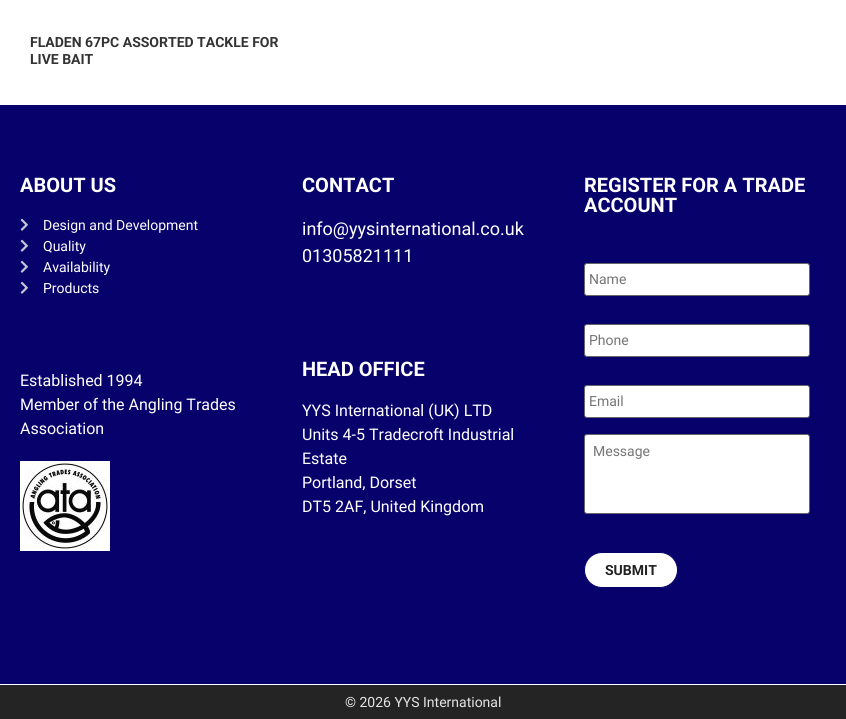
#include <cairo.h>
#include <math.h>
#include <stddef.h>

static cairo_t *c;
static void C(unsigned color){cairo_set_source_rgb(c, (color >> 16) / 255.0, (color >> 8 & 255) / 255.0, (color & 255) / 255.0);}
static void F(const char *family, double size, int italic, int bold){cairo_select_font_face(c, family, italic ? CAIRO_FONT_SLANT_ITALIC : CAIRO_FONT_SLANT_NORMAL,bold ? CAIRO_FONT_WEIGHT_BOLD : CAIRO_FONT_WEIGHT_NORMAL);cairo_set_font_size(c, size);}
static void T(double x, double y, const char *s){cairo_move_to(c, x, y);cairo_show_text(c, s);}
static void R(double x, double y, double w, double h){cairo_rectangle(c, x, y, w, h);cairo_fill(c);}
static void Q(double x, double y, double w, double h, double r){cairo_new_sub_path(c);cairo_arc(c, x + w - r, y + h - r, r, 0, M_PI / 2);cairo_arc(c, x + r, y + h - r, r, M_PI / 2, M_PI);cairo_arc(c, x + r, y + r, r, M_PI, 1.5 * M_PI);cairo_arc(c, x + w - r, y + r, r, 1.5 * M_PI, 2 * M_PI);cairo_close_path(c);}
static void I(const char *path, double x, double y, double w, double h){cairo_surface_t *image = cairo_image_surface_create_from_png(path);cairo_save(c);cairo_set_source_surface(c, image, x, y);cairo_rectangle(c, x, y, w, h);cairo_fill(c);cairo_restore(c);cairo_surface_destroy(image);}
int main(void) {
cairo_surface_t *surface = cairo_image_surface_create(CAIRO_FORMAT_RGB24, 846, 719);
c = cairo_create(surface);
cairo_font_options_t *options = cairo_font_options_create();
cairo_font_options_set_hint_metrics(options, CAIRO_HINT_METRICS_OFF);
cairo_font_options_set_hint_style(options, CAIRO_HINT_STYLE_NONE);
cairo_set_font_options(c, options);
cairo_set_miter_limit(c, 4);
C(0xffffff);
cairo_paint(c);
F("Roboto",14,0,1);
C(0x333333);
T(30,47,"FLADEN 67PC ASSORTED TACKLE FOR");
T(30,64,"LIVE BAIT");
C(0x07016b);
R(0,105,846,579);
F("Roboto",20,0,1);
C(0xffffff);
T(20,192,"ABOUT US");
I("1.png",20,218,8,13);
F("Roboto",14,0,0);
T(43,230,"Design and Development");
I("1.png",20,239,8,13);
T(43,251,"Quality");
I("1.png",20,260,8,13);
T(43,272,"Availability");
I("1.png",20,281,8,13);
T(43,293,"Products");
F("Roboto",16,0,0);
T(20,386,"Established 1994");
T(20,410,"Member of the Angling Trades");
T(20,434,"Association");
I("2.png",20,461,90,90);
F("Roboto",20,0,1);
T(302,192,"CONTACT");
F("Roboto",18,0,0);
T(302,235,"info@yysinternational.co.uk");
T(302,262,"01305821111");
F("Roboto",20,0,1);
T(302,376,"HEAD OFFICE");
F("Roboto",16,0,0);
T(302,416,"YYS International (UK) LTD");
T(302,440,"Units 4-5 Tradecroft Industrial");
T(302,464,"Estate");
T(302,488,"Portland, Dorset");
T(302,512,"DT5 2AF, United Kingdom");
F("Roboto",20,0,1);
T(584,192,"REGISTER FOR A TRADE");
T(584,212,"ACCOUNT");
Q(584.5,263.5,225,32,2.5);
cairo_fill_preserve(c);
C(0x666666);
cairo_set_line_width(c,1);
cairo_stroke(c);
F("Roboto",14,0,0);
C(0x757575);
T(589,284,"Name");
C(0xffffff);
Q(584.5,324.5,225,32,2.5);
cairo_fill_preserve(c);
C(0x666666);
cairo_stroke(c);
C(0x757575);
T(589,345,"Phone");
C(0xffffff);
Q(584.5,385.5,225,32,2.5);
cairo_fill_preserve(c);
C(0x666666);
cairo_stroke(c);
C(0x757575);
T(589,406,"Email");
C(0xffffff);
Q(584.5,434.5,225,79,2.5);
cairo_fill_preserve(c);
C(0x666666);
cairo_stroke(c);
C(0x757575);
T(593,456,"Message");
C(0xffffff);
Q(584.5,552.5,93,35,17.5);
cairo_fill_preserve(c);
C(0x07016b);
cairo_stroke(c);
F("Roboto",14,0,1);
C(0x222222);
T(605,575,"SUBMIT");
C(0x242424);
R(0,685,846,34);
F("Roboto",14,0,0);
C(0xe4e4e4);
T(345,707,"© 2026 YYS International");
cairo_surface_write_to_png(surface, "o.png");
cairo_font_options_destroy(options);
cairo_destroy(c);
cairo_surface_destroy(surface);
return 0;
}
